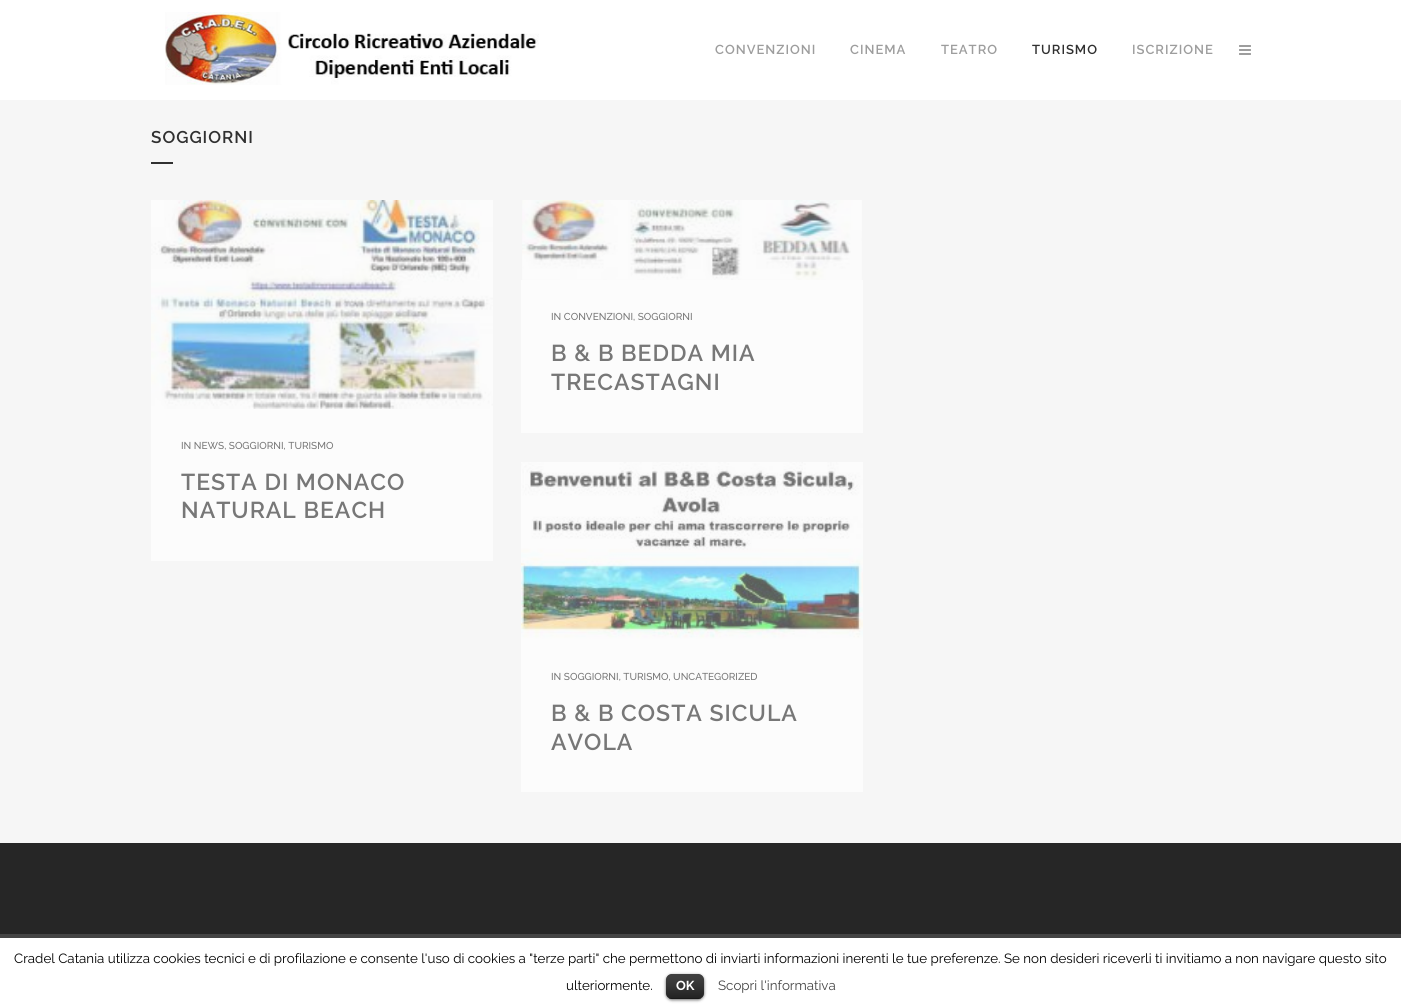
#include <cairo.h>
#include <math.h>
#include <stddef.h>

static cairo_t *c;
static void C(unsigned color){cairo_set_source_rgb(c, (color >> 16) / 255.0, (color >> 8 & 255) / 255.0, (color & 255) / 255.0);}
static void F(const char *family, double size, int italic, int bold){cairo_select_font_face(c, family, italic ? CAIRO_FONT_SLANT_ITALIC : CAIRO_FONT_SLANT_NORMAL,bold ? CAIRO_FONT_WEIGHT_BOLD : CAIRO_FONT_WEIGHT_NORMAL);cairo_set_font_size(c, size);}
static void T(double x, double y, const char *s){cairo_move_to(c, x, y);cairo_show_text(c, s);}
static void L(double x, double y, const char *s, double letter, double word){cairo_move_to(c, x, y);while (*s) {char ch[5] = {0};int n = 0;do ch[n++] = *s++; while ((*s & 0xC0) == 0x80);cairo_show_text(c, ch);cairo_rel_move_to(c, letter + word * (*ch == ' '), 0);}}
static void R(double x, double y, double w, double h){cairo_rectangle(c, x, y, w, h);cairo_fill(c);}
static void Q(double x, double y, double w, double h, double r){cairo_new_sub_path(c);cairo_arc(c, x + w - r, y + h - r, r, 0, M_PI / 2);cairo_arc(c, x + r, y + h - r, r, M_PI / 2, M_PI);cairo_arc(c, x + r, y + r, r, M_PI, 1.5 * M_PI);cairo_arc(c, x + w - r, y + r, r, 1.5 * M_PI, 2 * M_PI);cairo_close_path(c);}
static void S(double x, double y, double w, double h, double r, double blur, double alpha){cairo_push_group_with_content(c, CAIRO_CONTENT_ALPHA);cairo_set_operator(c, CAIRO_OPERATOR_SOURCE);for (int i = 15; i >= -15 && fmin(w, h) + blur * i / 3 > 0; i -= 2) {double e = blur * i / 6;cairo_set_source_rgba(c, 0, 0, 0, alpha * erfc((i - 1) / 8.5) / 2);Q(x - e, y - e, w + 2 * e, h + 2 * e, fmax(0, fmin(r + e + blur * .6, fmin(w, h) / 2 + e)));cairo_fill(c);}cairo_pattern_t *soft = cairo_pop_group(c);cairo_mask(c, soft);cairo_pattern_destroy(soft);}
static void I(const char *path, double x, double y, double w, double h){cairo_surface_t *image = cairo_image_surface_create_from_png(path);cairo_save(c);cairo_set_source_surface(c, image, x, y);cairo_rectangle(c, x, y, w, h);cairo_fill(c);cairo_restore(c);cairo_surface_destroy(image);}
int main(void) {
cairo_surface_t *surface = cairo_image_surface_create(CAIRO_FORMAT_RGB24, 1401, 1004);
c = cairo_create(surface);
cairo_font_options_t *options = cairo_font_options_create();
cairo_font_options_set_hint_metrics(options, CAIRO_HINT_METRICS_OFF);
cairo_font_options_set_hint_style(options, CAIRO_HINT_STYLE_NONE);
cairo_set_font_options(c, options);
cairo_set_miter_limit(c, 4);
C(0xf6f6f6);
cairo_paint(c);
C(0xffffff);
R(0,0,1401,100);
I("1.png",165,12,374,73);
F("Raleway SemiBold",13,0,0);
C(0x9d9d9d);
L(715,54,"CONVENZIONI",1,0);
L(850,54,"CINEMA",1,0);
L(941,54,"TEATRO",1,0);
C(0x303030);
L(1032,54,"TURISMO",1,0);
C(0x9d9d9d);
L(1132,54,"ISCRIZIONE",1,0);
I("2.png",1239,45,12,10);
F("Raleway SemiBold",17,0,0);
C(0x303030);
L(151,143,"SOGGIORNI",1,0);
R(151,162,22,2);
I("3.png",522,200,340,80);
C(0xfcfcfc);
R(521,280,342,153);
F("Raleway Medium",10,0,0);
C(0x777777);
T(551,320,"IN CONVENZIONI, SOGGIORNI");
F("Raleway SemiBold",23,0,0);
L(551,361,"B & B BEDDA MIA",1,0);
L(551,390,"TRECASTAGNI",1,0);
I("4.png",151,200,342,209);
C(0xfcfcfc);
R(151,409,342,152);
F("Raleway Medium",10,0,0);
C(0x777777);
T(181,449,"IN NEWS, SOGGIORNI, TURISMO");
F("Raleway SemiBold",23,0,0);
L(181,490,"TESTA DI MONACO",1,0);
L(181,518,"NATURAL BEACH",1,0);
I("5.png",521,462,342,178);
C(0xfcfcfc);
R(521,640,342,152);
F("Raleway Medium",10,0,0);
C(0x777777);
T(551,680,"IN SOGGIORNI, TURISMO, UNCATEGORIZED");
F("Raleway SemiBold",23,0,0);
L(551,721,"B & B COSTA SICULA",1,0);
L(551,750,"AVOLA",1,0);
C(0x262626);
R(0,843,1401,91);
C(0xffffff);
R(0,938,1401,66);
C(0x444444);
R(0,934,1401,4);
F("Raleway",13.33,0,0);
C(0x000000);
T(14,963,"Cradel Catania utilizza cookies tecnici e di profilazione e consente l'uso di cookies a \"terze parti\" che permettono di inviarti informazioni inerenti le tue preferenze. Se non desideri riceverli ti invitiamo a non navigare questo sito");
T(566,990,"ulteriormente.");
C(0x000000);
S(666,975,38,25,6,1.5,.6);
C(0x000000);
Q(666,974,38,25,6);
cairo_fill(c);
I("6.png",666,974,38,25);
cairo_set_source_rgba(c,0,0,0,0.25);
R(669,998,32,1);
F("Raleway",13,0,1);
C(0xffffff);
T(676,990,"OK");
F("Raleway",13.33,0,0);
C(0x444444);
T(718,990,"Scopri l'informativa");
cairo_surface_write_to_png(surface, "o.png");
cairo_font_options_destroy(options);
cairo_destroy(c);
cairo_surface_destroy(surface);
return 0;
}
